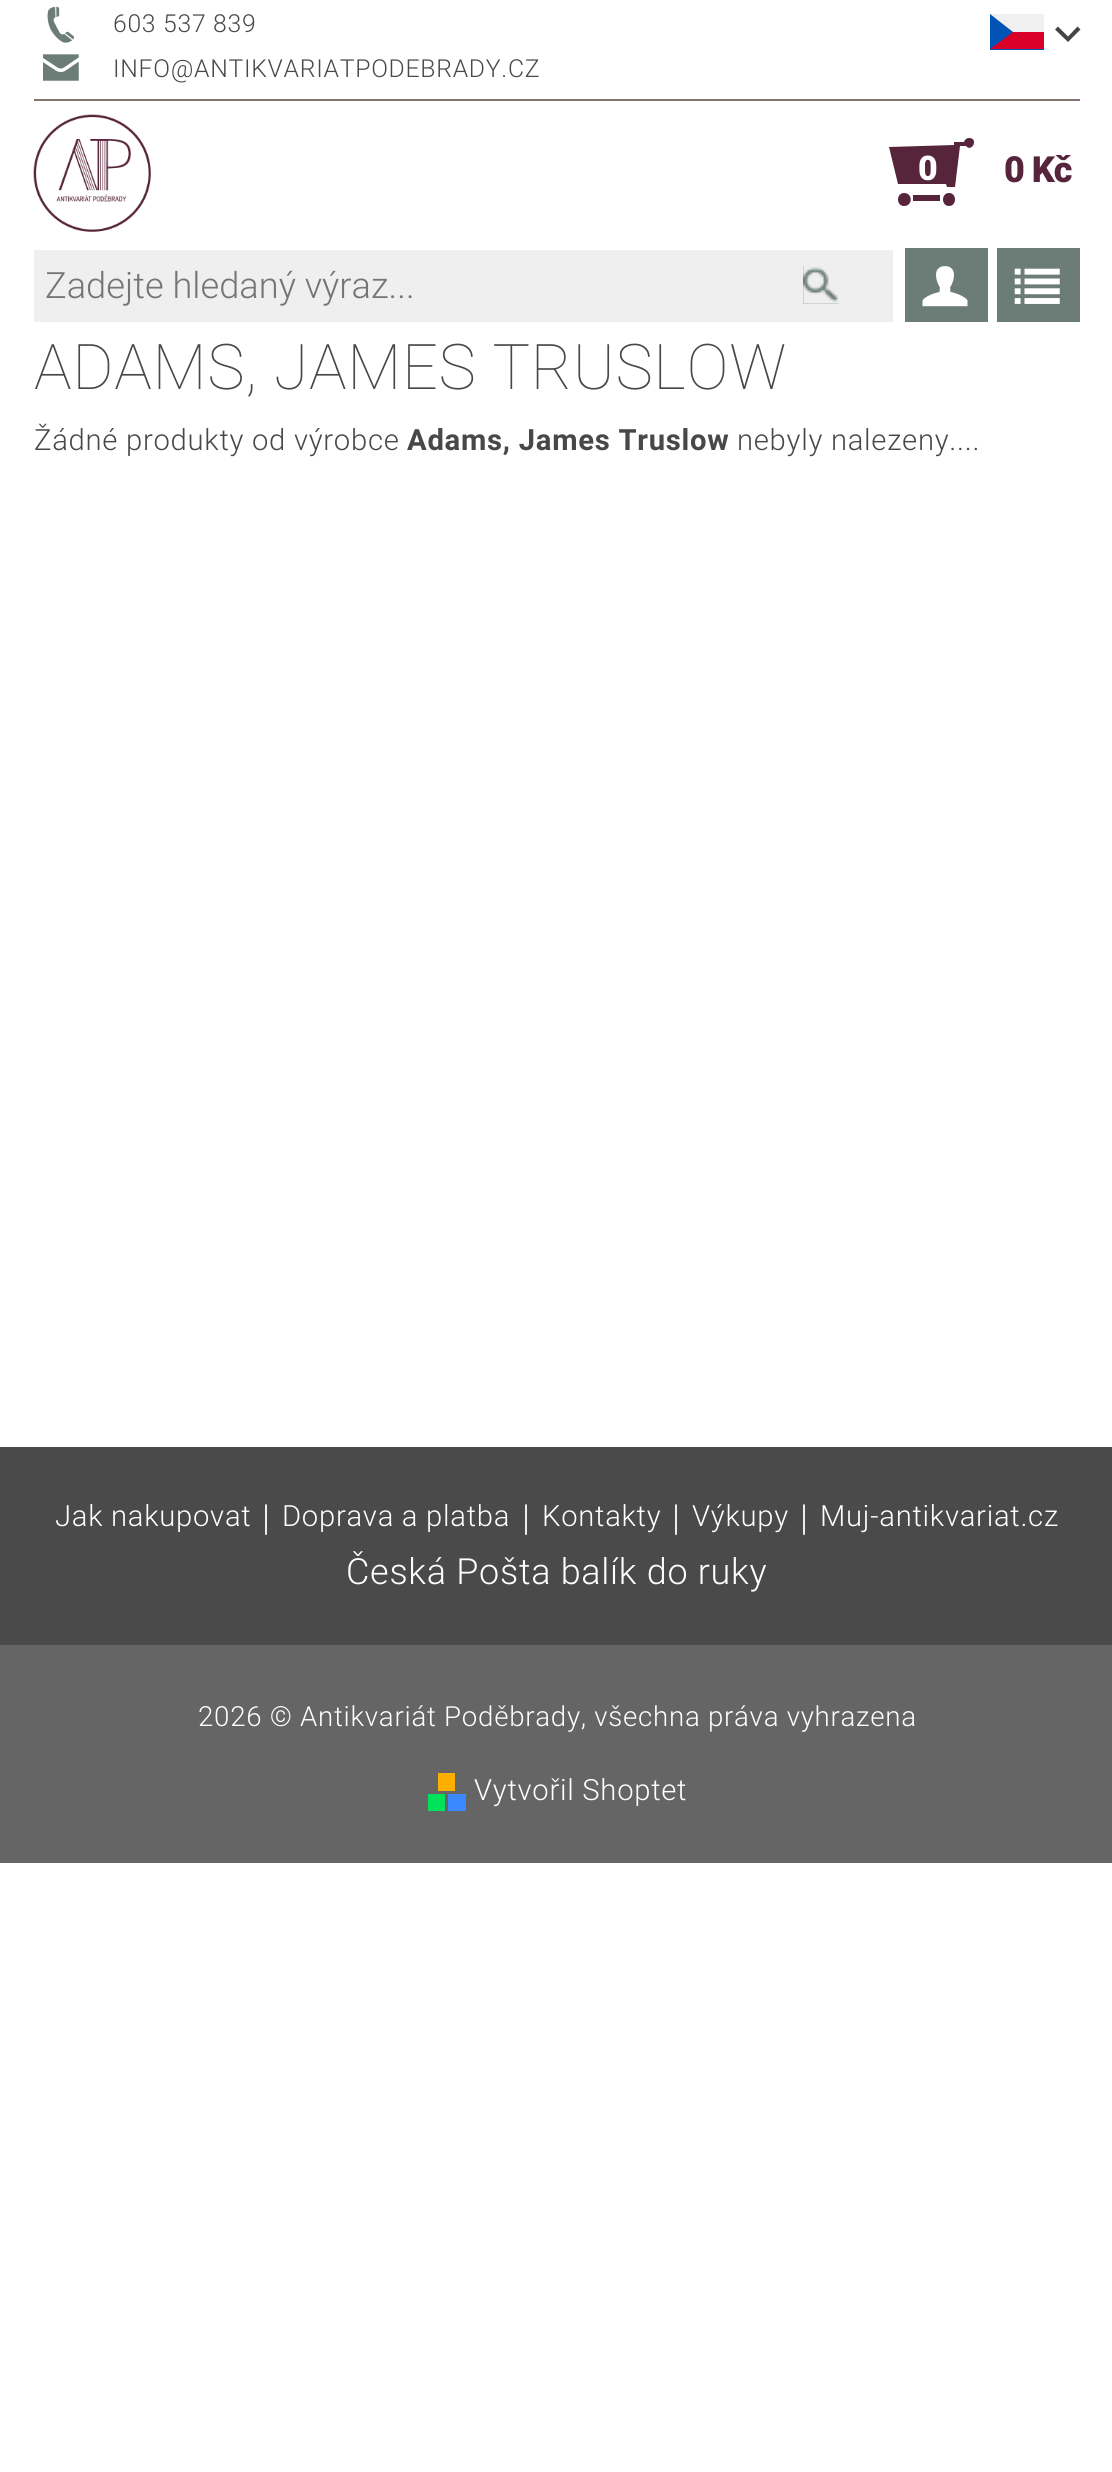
#include <cairo.h>
#include <math.h>
#include <stddef.h>

static cairo_t *c;
static void C(unsigned color){cairo_set_source_rgb(c, (color >> 16) / 255.0, (color >> 8 & 255) / 255.0, (color & 255) / 255.0);}
static void F(const char *family, double size, int italic, int bold){cairo_select_font_face(c, family, italic ? CAIRO_FONT_SLANT_ITALIC : CAIRO_FONT_SLANT_NORMAL,bold ? CAIRO_FONT_WEIGHT_BOLD : CAIRO_FONT_WEIGHT_NORMAL);cairo_set_font_size(c, size);}
static void T(double x, double y, const char *s){cairo_move_to(c, x, y);cairo_show_text(c, s);}
static void L(double x, double y, const char *s, double letter, double word){cairo_move_to(c, x, y);while (*s) {char ch[5] = {0};int n = 0;do ch[n++] = *s++; while ((*s & 0xC0) == 0x80);cairo_show_text(c, ch);cairo_rel_move_to(c, letter + word * (*ch == ' '), 0);}}
static void R(double x, double y, double w, double h){cairo_rectangle(c, x, y, w, h);cairo_fill(c);}
static void I(const char *path, double x, double y, double w, double h){cairo_surface_t *image = cairo_image_surface_create_from_png(path);cairo_save(c);cairo_set_source_surface(c, image, x, y);cairo_rectangle(c, x, y, w, h);cairo_fill(c);cairo_restore(c);cairo_surface_destroy(image);}
int main(void) {
cairo_surface_t *surface = cairo_image_surface_create(CAIRO_FORMAT_RGB24, 1112, 2472);
c = cairo_create(surface);
cairo_font_options_t *options = cairo_font_options_create();
cairo_font_options_set_hint_metrics(options, CAIRO_HINT_METRICS_OFF);
cairo_font_options_set_hint_style(options, CAIRO_HINT_STYLE_NONE);
cairo_set_font_options(c, options);
cairo_set_miter_limit(c, 4);
C(0xffffff);
cairo_paint(c);
C(0x817471);
R(34,99,1046,2);
I("1.png",47,6,28,37);
F("Roboto Light",24.75,0,0);
C(0x484848);
L(113,32,"603 537 839",.72,0);
I("2.png",43,54,36,27);
L(113,77,"INFO@ANTIKVARIATPODEBRADY.CZ",.72,0);
C(0x0052b4);
R(990,14,54,36);
C(0xd80027);
cairo_new_path(c);
cairo_move_to(c,1044,32);
cairo_line_to(c,1044,49);
cairo_line_to(c,990,49);
cairo_line_to(c,1013,32);
cairo_close_path(c);
cairo_fill(c);
C(0xf0f0f0);
cairo_new_path(c);
cairo_move_to(c,1044,14);
cairo_line_to(c,1044,32);
cairo_line_to(c,1013,32);
cairo_line_to(c,990,14);
cairo_close_path(c);
cairo_fill(c);
C(0x444444);
cairo_new_path(c);
cairo_move_to(c,1055,29.5);
cairo_line_to(c,1068,42);
cairo_line_to(c,1080.5,29.5);
cairo_line_to(c,1077.5,26.5);
cairo_line_to(c,1068,36.5);
cairo_line_to(c,1058,26.5);
cairo_close_path(c);
cairo_fill(c);
I("3.png",33,114,118,118);
C(0x56253b);
cairo_new_path(c);
cairo_move_to(c,913,201);
cairo_line_to(c,940,201);
cairo_line_to(c,940,195);
cairo_line_to(c,913,195);
cairo_close_path(c);
cairo_move_to(c,904,193);
cairo_curve_to(c,896,193,896,206,904,206);
cairo_curve_to(c,913,206,913,193,904,193);
cairo_close_path(c);
cairo_move_to(c,949,193);
cairo_curve_to(c,941,193,941,206,949,206);
cairo_curve_to(c,957,206,957,193,949,193);
cairo_close_path(c);
cairo_move_to(c,969,138);
cairo_curve_to(c,967,138,965,139,964,142);
cairo_line_to(c,954,142);
cairo_line_to(c,954,145);
cairo_line_to(c,889,147);
cairo_line_to(c,898,184);
cairo_line_to(c,946,184);
cairo_line_to(c,947,187);
cairo_line_to(c,955,187);
cairo_line_to(c,960,146);
cairo_line_to(c,966,146);
cairo_curve_to(c,972,153,979,138,969,138);
cairo_close_path(c);
cairo_fill(c);
F("Roboto Black",34,0,0);
C(0xffffff);
L(918,180,"0",-1,0);
F("Roboto Black",36,0,0);
C(0x56253b);
L(1004,182,"0 Kč",-1,0);
C(0xefefef);
R(34,250,859,72);
F("Roboto Light",36.25,0,0);
C(0x757575);
T(45,298,"Zadejte hledaný výraz...");
C(0x6c7d77);
R(803,266,36,38);
I("4.png",803,266,36,38);
R(905,248,83,74);
I("5.png",922,266,46,41);
R(997,248,83,74);
I("6.png",1014,268,46,36);
F("Roboto Thin",63,0,0);
C(0x484848);
L(34,389,"ADAMS, JAMES TRUSLOW",.72,0);
F("Roboto Light",29.25,0,0);
L(34,450,"Žádné produkty od výrobce",.72,0);
F("Roboto",29.25,0,1);
L(407,450,"Adams, James Truslow",.72,0);
F("Roboto Light",29.25,0,0);
L(737,450,"nebyly nalezeny....",.72,0);
C(0x4a4a4a);
R(0,1447,1112,198);
C(0xffffff);
L(55,1526,"Jak nakupovat",.72,0);
F("Roboto Light",36,0,0);
L(262,1530,"|",.72,0);
F("Roboto Light",29.25,0,0);
L(282,1526,"Doprava a platba",.72,0);
F("Roboto Light",36,0,0);
L(522,1530,"|",.72,0);
F("Roboto Light",29.25,0,0);
L(542,1526,"Kontakty",.72,0);
F("Roboto Light",36,0,0);
L(672,1530,"|",.72,0);
F("Roboto Light",29.25,0,0);
L(692,1526,"Výkupy",.72,0);
F("Roboto Light",36,0,0);
L(800,1530,"|",.72,0);
F("Roboto Light",29.25,0,0);
L(820,1526,"Muj-antikvariat.cz",.72,0);
F("Roboto Light",36,0,0);
L(346,1584,"Česká Pošta balík do ruky",.72,0);
C(0x656565);
R(0,1645,1112,218);
F("Roboto Light",27.7,0,0);
C(0xffffff);
L(198,1726,"2026 © Antikvariát Poděbrady, všechna práva vyhrazena",.72,0);
C(0xfcaf00);
R(438,1773,17,18);
C(0x00e25a);
R(428,1794,17,17);
C(0x3b88ff);
R(448,1794,18,17);
F("Roboto Light",29.25,0,0);
C(0xffffff);
L(474,1800,"Vytvořil Shoptet",.72,0);
cairo_surface_write_to_png(surface, "o.png");
cairo_font_options_destroy(options);
cairo_destroy(c);
cairo_surface_destroy(surface);
return 0;
}
